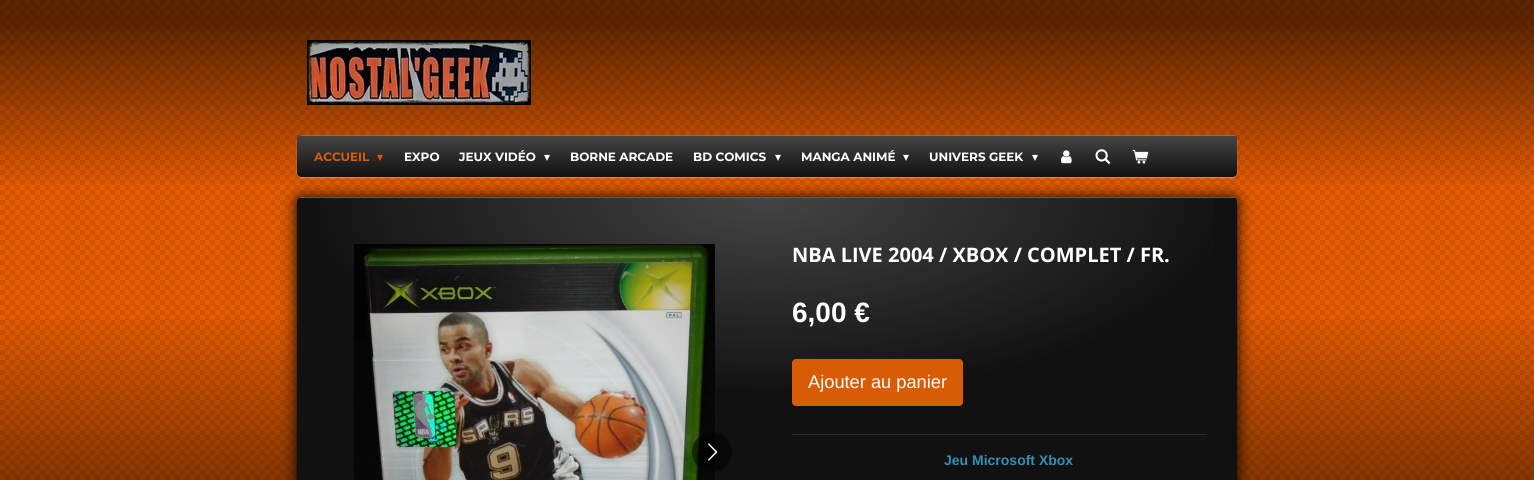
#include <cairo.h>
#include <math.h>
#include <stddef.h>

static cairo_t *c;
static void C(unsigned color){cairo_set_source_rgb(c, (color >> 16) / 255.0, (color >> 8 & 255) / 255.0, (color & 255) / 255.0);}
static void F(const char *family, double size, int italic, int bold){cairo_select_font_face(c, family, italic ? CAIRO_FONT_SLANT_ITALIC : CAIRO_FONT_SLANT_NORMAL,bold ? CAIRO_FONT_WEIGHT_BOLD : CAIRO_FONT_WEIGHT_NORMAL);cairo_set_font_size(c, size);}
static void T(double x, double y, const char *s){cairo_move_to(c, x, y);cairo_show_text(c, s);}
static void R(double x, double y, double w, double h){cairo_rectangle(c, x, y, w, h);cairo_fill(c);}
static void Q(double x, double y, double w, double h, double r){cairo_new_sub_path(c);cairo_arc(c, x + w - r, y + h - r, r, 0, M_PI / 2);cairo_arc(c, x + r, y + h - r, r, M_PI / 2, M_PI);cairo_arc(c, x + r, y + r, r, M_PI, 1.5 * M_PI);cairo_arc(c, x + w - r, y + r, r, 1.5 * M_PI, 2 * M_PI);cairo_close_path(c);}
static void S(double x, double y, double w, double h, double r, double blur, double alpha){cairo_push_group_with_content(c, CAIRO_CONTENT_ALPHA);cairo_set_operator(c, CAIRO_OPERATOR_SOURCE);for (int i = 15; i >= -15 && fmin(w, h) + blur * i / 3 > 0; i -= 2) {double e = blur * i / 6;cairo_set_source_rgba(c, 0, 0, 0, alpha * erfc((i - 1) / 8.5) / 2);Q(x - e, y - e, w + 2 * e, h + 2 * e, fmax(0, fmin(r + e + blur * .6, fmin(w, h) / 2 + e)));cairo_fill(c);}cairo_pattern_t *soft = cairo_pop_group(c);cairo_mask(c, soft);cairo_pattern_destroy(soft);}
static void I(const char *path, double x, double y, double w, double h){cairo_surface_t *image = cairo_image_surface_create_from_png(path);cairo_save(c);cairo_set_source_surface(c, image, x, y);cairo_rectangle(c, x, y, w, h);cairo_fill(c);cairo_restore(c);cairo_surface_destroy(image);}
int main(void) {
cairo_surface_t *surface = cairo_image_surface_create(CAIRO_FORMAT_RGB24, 1534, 480);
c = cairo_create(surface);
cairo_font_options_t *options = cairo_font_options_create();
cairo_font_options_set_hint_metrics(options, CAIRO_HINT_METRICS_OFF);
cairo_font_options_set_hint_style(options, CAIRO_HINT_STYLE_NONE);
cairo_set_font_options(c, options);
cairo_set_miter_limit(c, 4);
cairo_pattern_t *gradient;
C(0xe75c00);
cairo_paint(c);
I("1.png",0,0,1534,480);
cairo_set_source_rgba(c,0,0,0,0.6);
R(0,0,1534,20);
gradient = cairo_pattern_create_linear(767,190,767,20);
cairo_pattern_add_color_stop_rgba(gradient,0,0,0,0,0);
cairo_pattern_add_color_stop_rgba(gradient,1,0,0,0,.6);
cairo_set_source(c,gradient);
cairo_pattern_destroy(gradient);
R(0,20,1534,164);
I("2.png",307,40,224,65);
C(0xffffff);
S(297,136,940,42,5,.5,.3);
C(0x111111);
Q(297,135,940,42,5);
cairo_fill(c);
cairo_save(c);
Q(297,135,940,42,5);
cairo_clip(c);
gradient = cairo_pattern_create_linear(767,136,767,95);
cairo_pattern_add_color_stop_rgba(gradient,0,0.067,0.067,0.067,1);
cairo_pattern_add_color_stop_rgba(gradient,1,0.267,0.267,0.267,1);
cairo_set_source(c,gradient);
cairo_pattern_destroy(gradient);
R(297,135,3,1);
gradient = cairo_pattern_create_linear(767,177,767,136);
cairo_pattern_add_color_stop_rgba(gradient,0,0.067,0.067,0.067,1);
cairo_pattern_add_color_stop_rgba(gradient,1,0.267,0.267,0.267,1);
cairo_set_source(c,gradient);
cairo_pattern_destroy(gradient);
cairo_new_path(c);
cairo_move_to(c,297,136);
cairo_line_to(c,1237,136);
cairo_line_to(c,1237,172);
cairo_curve_to(c,1237,175,1235,177,1232,177);
cairo_line_to(c,302,177);
cairo_curve_to(c,299,177,297,175,297,172);
cairo_close_path(c);
cairo_fill(c);
cairo_restore(c);
C(0x727272);
R(300,135,935,1);
F("Montserrat",12,0,1);
C(0xd85b06);
T(314,161,"ACCUEIL");
F("DejaVu Sans",12,0,0);
T(377,161,"▾");
F("Montserrat",12,0,1);
C(0xffffff);
T(404,161,"EXPO");
T(459,161,"JEUX VIDÉO");
F("DejaVu Sans",12,0,0);
T(544,161,"▾");
F("Montserrat",12,0,1);
T(570,161,"BORNE ARCADE");
T(693,161,"BD COMICS");
F("DejaVu Sans",12,0,0);
T(775,161,"▾");
F("Montserrat",12,0,1);
T(801,161,"MANGA ANIMÉ");
F("DejaVu Sans",12,0,0);
T(903,161,"▾");
F("Montserrat",12,0,1);
T(929,161,"UNIVERS GEEK");
F("DejaVu Sans",12,0,0);
T(1032,161,"▾");
I("3.png",1060,150,12,14);
I("4.png",1095,149,16,16);
I("5.png",1132,149,17,15);
gradient = cairo_pattern_create_linear(767,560,767,310);
cairo_pattern_add_color_stop_rgba(gradient,0,0,0,0,.6);
cairo_pattern_add_color_stop_rgba(gradient,1,0,0,0,0);
cairo_set_source(c,gradient);
cairo_pattern_destroy(gradient);
R(0,319,1534,161);
C(0x000000);
S(297,197,940,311,5,7.5,1);
C(0x111111);
Q(297,197,940,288,5);
cairo_fill(c);
C(0x5e5e5e);
R(300,197,935,1);
gradient = cairo_pattern_create_radial(0,0,0,0,0,1);
cairo_pattern_set_matrix(gradient, &(cairo_matrix_t){1.0 / 470, 0, 0, 1.0 / 200, -1.0 * 767 / 470, -1.0 * 198 / 200});
cairo_pattern_add_color_stop_rgba(gradient,0,0.267,0.267,0.267,1);
cairo_pattern_add_color_stop_rgba(gradient,1,0.267,0.267,0.267,0);
cairo_set_source(c,gradient);
cairo_pattern_destroy(gradient);
R(320,198,894,190);
I("6.png",354,244,361,236);
cairo_set_source_rgba(c,0,0,0,0.5);
cairo_arc(c,712,452,20,0,2 * M_PI);
cairo_fill(c);
I("7.png",708,443,10,18);
F("Open Sans",20,0,1);
C(0xffffff);
T(792,262,"NBA LIVE 2004 / XBOX / COMPLET / FR.");
F("Liberation Sans",28,0,1);
T(792,322,"6,00 €");
C(0xd85b06);
Q(792,359,171,47,4);
cairo_fill(c);
F("Liberation Sans",18.25,0,0);
C(0xffffff);
T(808,388,"Ajouter au panier");
C(0x2d2d2d);
R(792,434,415,1);
F("Liberation Sans",14,0,1);
C(0x3490ae);
T(944,465,"Jeu Microsoft Xbox");
cairo_surface_write_to_png(surface, "o.png");
cairo_font_options_destroy(options);
cairo_destroy(c);
cairo_surface_destroy(surface);
return 0;
}
